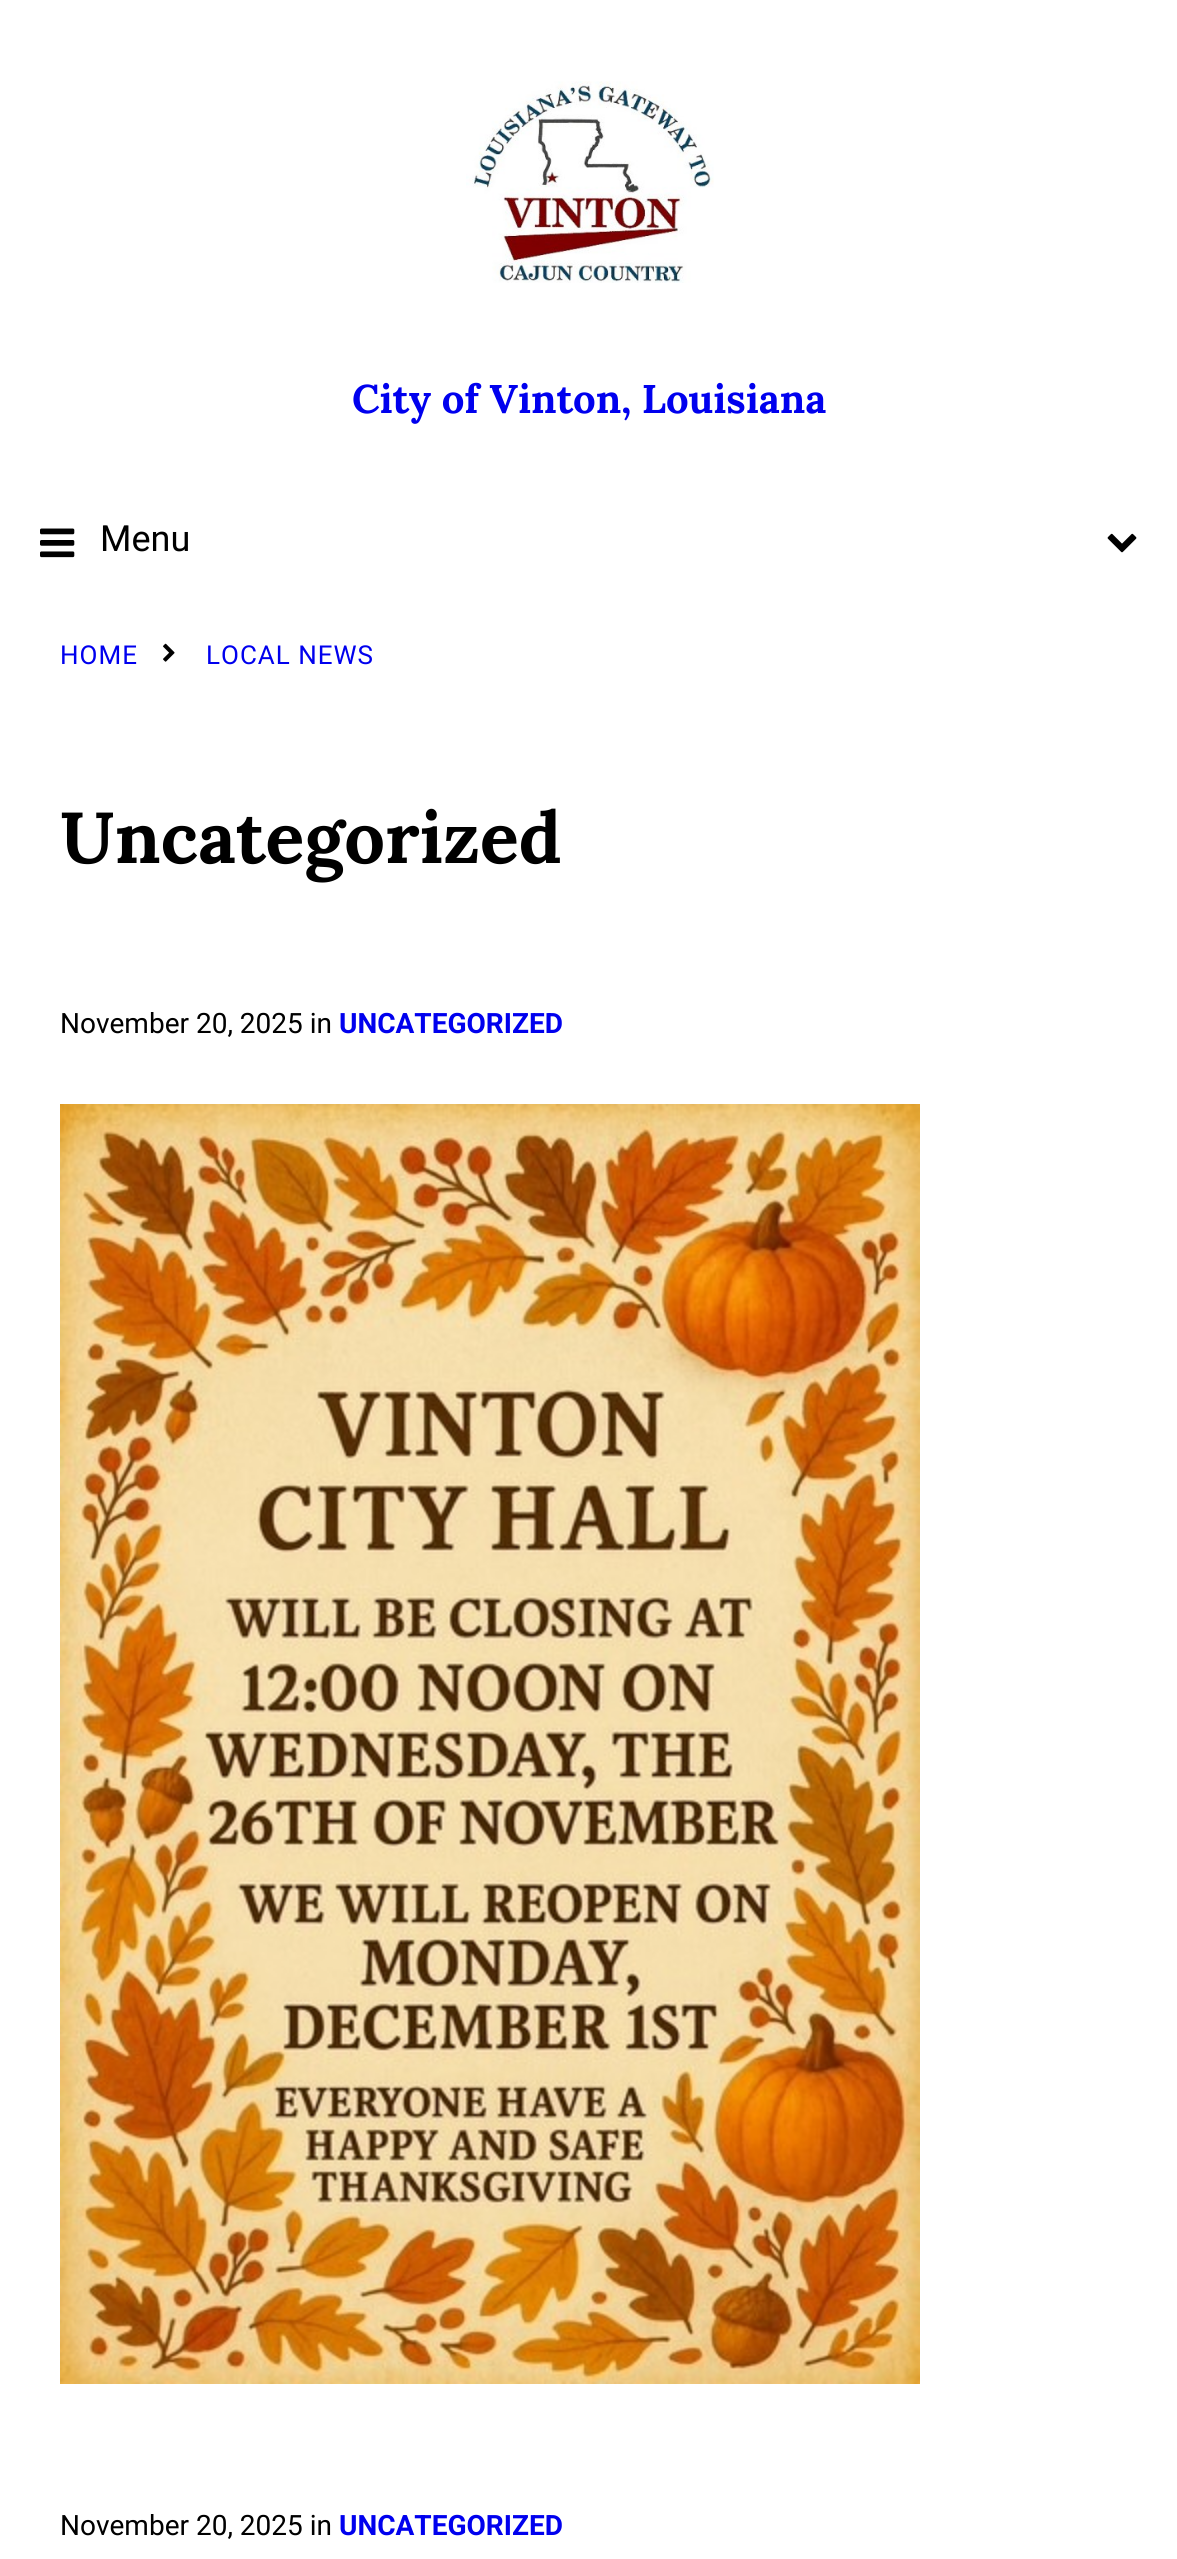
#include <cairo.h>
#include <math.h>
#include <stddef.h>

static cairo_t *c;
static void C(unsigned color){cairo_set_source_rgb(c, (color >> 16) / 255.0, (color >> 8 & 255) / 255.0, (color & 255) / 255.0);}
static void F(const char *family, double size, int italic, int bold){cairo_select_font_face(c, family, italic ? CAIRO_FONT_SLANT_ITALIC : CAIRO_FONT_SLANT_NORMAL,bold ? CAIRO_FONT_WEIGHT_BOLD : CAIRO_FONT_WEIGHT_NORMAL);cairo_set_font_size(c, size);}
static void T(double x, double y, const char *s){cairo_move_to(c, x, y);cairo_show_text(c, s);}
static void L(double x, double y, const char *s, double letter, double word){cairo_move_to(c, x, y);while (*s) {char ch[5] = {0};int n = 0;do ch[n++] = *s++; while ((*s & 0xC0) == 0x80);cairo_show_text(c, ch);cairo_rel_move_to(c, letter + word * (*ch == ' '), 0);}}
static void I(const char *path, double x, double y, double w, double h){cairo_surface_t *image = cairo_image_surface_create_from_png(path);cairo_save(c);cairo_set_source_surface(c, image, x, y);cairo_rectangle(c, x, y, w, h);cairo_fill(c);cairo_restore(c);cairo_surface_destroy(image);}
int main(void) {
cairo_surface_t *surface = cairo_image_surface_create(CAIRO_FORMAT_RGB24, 1177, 2559);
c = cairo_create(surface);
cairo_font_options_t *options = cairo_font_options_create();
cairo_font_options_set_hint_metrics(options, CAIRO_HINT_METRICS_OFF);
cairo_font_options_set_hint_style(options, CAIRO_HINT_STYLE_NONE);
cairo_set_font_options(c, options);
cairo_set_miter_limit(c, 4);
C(0xffffff);
cairo_paint(c);
I("1.png",466,81,248,202);
F("Lora",40,0,1);
C(0x0000ee);
T(352,413,"City of Vinton, Louisiana");
I("2.png",40,528,35,30);
F("Roboto",36,0,0);
C(0x000000);
T(100,551,"Menu");
I("3.png",1107,533,30,20);
F("Roboto",26,0,0);
C(0x0000ee);
L(60,664,"HOME",1,0);
I("4.png",163,643,12,19);
L(206,664,"LOCAL NEWS",1,0);
F("Lora",72,0,1);
C(0x000000);
T(60,863,"Uncategorized");
F("Roboto",28,0,0);
T(60,1033,"November 20, 2025 in");
F("Roboto",28,0,1);
C(0x0000ee);
T(339,1033,"UNCATEGORIZED");
I("5.png",60,1104,860,1280);
F("Roboto",28,0,0);
C(0x000000);
T(60,2535,"November 20, 2025 in");
F("Roboto",28,0,1);
C(0x0000ee);
T(339,2535,"UNCATEGORIZED");
cairo_surface_write_to_png(surface, "o.png");
cairo_font_options_destroy(options);
cairo_destroy(c);
cairo_surface_destroy(surface);
return 0;
}
